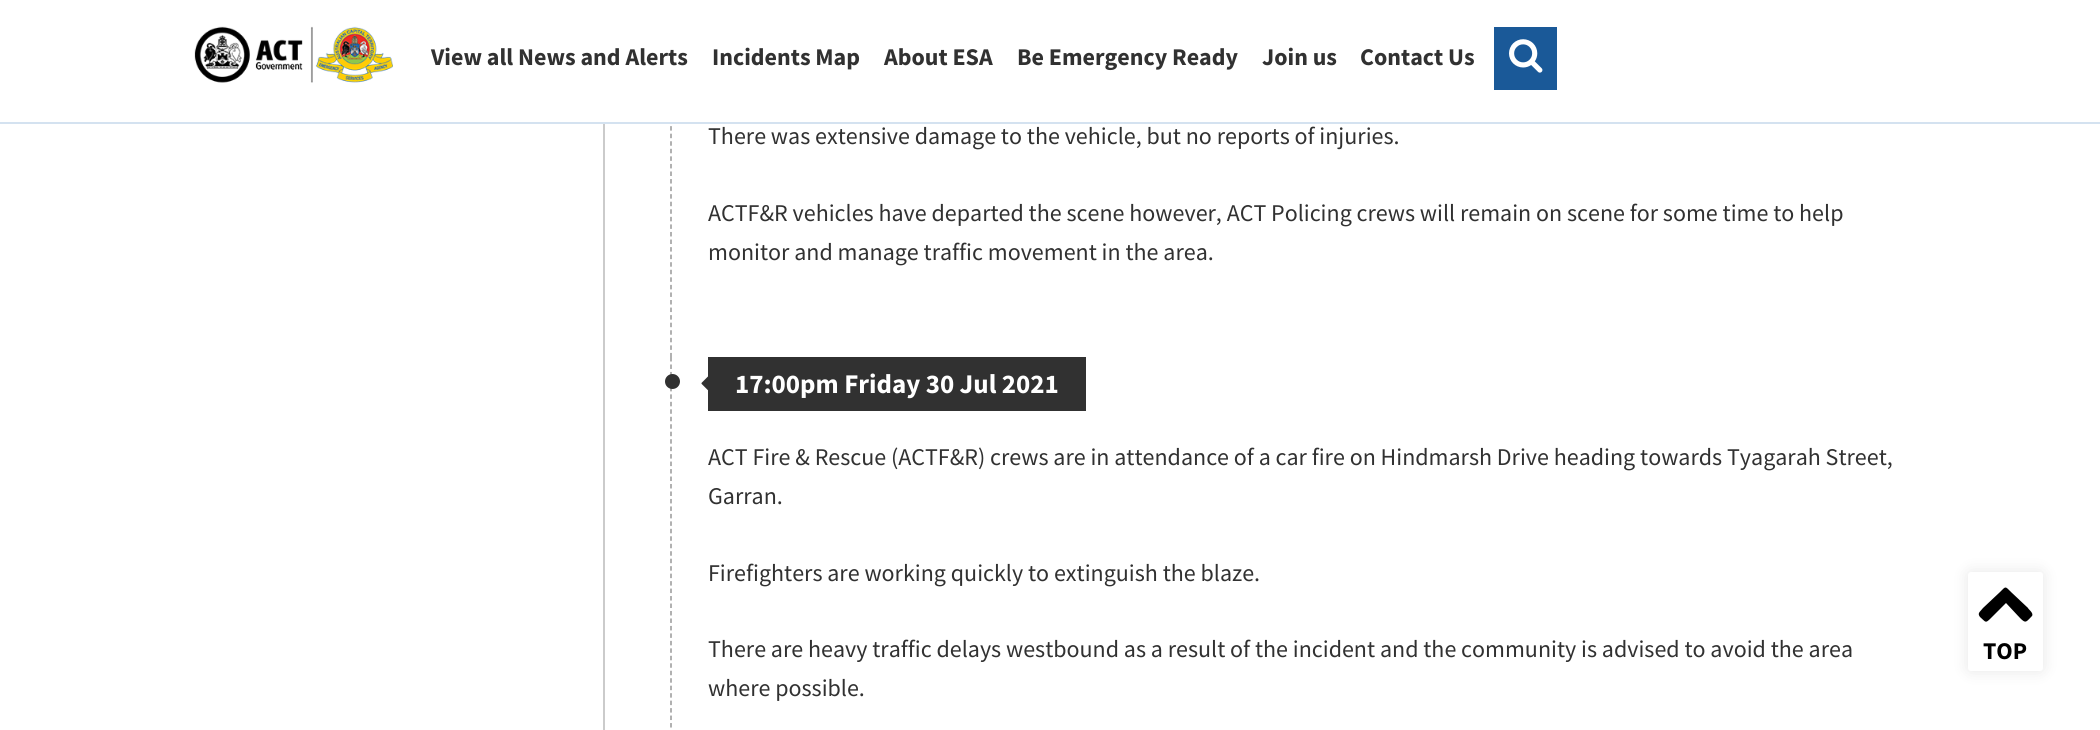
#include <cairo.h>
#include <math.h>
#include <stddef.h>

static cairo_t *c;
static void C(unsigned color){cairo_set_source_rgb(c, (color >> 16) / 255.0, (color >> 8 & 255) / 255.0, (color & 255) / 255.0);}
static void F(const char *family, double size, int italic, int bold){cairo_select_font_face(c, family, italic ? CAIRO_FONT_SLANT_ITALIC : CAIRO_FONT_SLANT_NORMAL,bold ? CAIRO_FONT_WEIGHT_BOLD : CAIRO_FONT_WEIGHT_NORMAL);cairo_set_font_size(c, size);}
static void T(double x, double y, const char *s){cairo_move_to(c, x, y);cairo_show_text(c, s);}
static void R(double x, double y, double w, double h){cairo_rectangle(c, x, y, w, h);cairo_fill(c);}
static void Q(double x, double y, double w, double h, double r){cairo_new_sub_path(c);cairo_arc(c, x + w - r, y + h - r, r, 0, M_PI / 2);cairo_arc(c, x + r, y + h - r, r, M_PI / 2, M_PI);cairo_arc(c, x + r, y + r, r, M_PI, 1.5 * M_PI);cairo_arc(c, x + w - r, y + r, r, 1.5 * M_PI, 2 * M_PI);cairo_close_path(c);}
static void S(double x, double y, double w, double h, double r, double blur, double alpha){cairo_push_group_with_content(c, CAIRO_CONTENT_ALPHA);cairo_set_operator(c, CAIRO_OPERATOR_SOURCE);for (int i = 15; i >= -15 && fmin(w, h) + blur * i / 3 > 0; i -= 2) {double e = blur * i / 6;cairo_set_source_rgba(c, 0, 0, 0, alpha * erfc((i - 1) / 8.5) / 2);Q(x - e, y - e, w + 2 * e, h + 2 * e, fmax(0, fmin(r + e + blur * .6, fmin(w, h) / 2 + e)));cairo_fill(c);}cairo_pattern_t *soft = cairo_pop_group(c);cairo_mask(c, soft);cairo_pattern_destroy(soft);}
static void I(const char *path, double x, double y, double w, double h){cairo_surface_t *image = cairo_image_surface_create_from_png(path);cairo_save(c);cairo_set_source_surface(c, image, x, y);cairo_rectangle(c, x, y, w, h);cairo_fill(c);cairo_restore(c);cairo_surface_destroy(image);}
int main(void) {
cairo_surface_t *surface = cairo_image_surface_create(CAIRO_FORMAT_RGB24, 2100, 730);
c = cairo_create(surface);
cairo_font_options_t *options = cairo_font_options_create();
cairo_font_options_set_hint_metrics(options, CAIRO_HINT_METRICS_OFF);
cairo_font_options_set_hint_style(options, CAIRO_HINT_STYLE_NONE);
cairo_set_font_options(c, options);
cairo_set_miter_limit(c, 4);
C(0xffffff);
cairo_paint(c);
cairo_new_path(c);
cairo_move_to(c,671,-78);
cairo_line_to(c,671,357);
C(0x989898);
cairo_set_line_width(c,1.5);
cairo_set_dash(c,(double[]){4.5,3.06},2,0);
cairo_stroke(c);
C(0xffffff);
R(670,0,2,122);
C(0xd4e2f0);
R(0,122,2100,2);
I("1.png",194,26,199,57);
F("Source Sans Pro",24,0,1);
C(0x313131);
T(431,65,"View all News and Alerts");
T(712,65,"Incidents Map");
T(884,65,"About ESA");
T(1017,65,"Be Emergency Ready");
T(1262,65,"Join us");
T(1360,65,"Contact Us");
C(0x1a5998);
R(1494,27,63,63);
I("2.png",1509,39,34,34);
C(0xcbcbcb);
R(603,124,2,606);
F("Source Sans Pro",24,0,0);
C(0x313131);
T(708,144,"There was extensive damage to the vehicle, but no reports of injuries.");
T(708,221,"ACTF&R vehicles have departed the scene however, ACT Policing crews will remain on scene for some time to help");
T(708,260,"monitor and manage traffic movement in the area.");
cairo_new_path(c);
cairo_move_to(c,671,357);
cairo_line_to(c,671,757.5);
C(0x989898);
cairo_set_dash(c,(double[]){4.5,2.97},2,0);
cairo_stroke(c);
C(0x313131);
cairo_arc(c,672.5,381.5,7.5,0,2 * M_PI);
cairo_fill(c);
R(708,357,378,54);
I("3.png",701,376,7,15);
F("Source Sans Pro",27,0,1);
C(0xffffff);
T(735,393,"17:00pm Friday 30 Jul 2021");
F("Source Sans Pro",24,0,0);
C(0x313131);
T(708,465,"ACT Fire & Rescue (ACTF&R) crews are in attendance of a car fire on Hindmarsh Drive heading towards Tyagarah Street,");
T(708,504,"Garran.");
T(708,581,"Firefighters are working quickly to extinguish the blaze.");
T(708,657,"There are heavy traffic delays westbound as a result of the incident and the community is advised to avoid the area");
T(708,696,"where possible.");
C(0x000000);
S(1968,572,75,99,3,7.5,.1);
C(0xffffff);
Q(1968,572,75,99,3);
cairo_fill(c);
C(0x000000);
cairo_new_path(c);
cairo_move_to(c,2032,616);
cairo_curve_to(c,2026,622,2026,624,2020,618);
cairo_line_to(c,2006,603);
cairo_line_to(c,1991,618);
cairo_curve_to(c,1985,624,1986,622,1980,617);
cairo_curve_to(c,1977,613,1980,612,1983,608);
cairo_line_to(c,2000,592);
cairo_curve_to(c,2006,586,2005,586,2011,592);
cairo_line_to(c,2028,608);
cairo_curve_to(c,2028,609,2034,613,2032,616);
cairo_close_path(c);
cairo_fill(c);
F("Source Sans Pro",24,0,1);
T(1983,659,"TOP");
cairo_surface_write_to_png(surface, "o.png");
cairo_font_options_destroy(options);
cairo_destroy(c);
cairo_surface_destroy(surface);
return 0;
}
